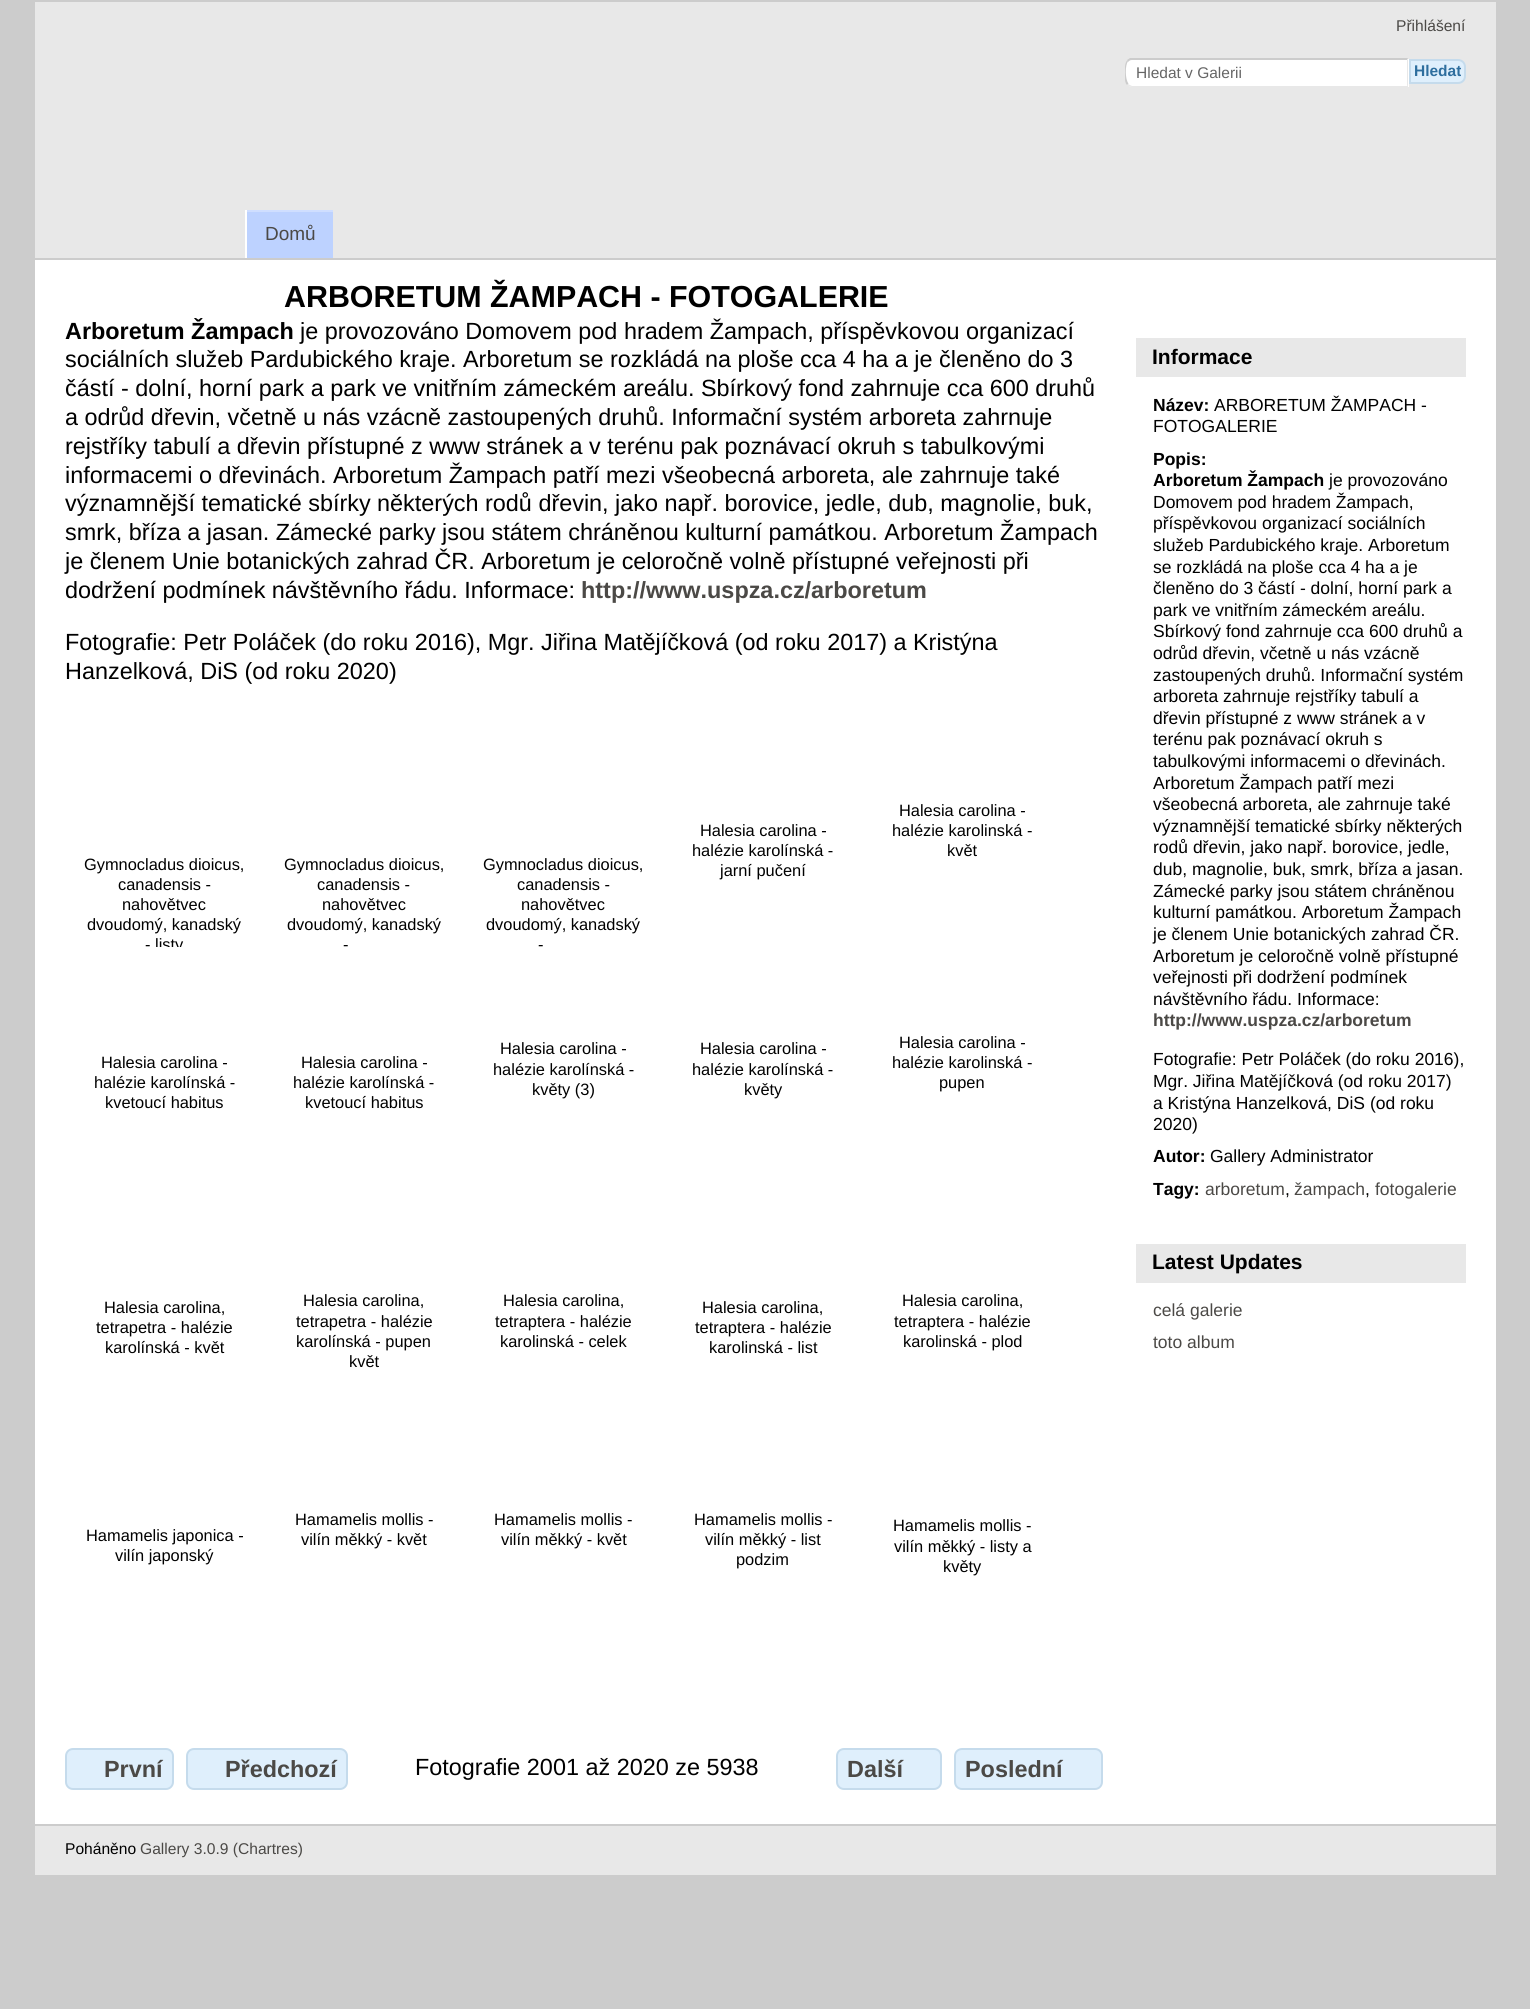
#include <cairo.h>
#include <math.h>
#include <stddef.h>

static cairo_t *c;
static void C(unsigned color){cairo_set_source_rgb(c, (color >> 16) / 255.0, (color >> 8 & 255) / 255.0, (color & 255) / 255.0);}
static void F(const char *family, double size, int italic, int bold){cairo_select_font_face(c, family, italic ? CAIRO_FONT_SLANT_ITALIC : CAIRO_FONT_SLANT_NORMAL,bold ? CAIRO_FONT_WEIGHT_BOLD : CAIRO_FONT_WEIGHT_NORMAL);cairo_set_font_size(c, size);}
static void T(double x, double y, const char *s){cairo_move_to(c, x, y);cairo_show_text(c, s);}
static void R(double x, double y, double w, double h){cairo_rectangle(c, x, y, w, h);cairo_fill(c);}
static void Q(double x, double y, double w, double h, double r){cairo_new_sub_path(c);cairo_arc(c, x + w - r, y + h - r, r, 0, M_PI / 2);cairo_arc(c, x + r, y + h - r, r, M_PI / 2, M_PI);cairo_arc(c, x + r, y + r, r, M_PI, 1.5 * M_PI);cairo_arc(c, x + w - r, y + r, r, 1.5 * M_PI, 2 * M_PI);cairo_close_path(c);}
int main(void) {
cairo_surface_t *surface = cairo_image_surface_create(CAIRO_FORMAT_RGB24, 1530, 2009);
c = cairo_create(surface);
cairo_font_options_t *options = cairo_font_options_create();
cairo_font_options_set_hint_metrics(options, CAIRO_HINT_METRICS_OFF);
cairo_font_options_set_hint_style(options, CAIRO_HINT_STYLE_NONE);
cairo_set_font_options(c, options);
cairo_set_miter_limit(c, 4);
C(0xcccccc);
cairo_paint(c);
C(0xffffff);
R(35,260,1461,1564);
C(0xe8e8e8);
R(35,2,1461,256);
F("Liberation Sans",15.6,0,0);
C(0x4b4946);
T(1396,31,"Přihlášení");
C(0xffffff);
cairo_new_path(c);
cairo_move_to(c,1133,59);
cairo_line_to(c,1409,59);
cairo_line_to(c,1409,87);
cairo_line_to(c,1133,87);
cairo_curve_to(c,1128.5,87,1125,83.5,1125,79);
cairo_line_to(c,1125,67);
cairo_curve_to(c,1125,62.5,1128.5,59,1133,59);
cairo_close_path(c);
cairo_fill(c);
C(0xcccccc);
cairo_new_path(c);
cairo_move_to(c,1132,60);
cairo_curve_to(c,1130,60,1129,61,1128,62);
cairo_line_to(c,1127,60);
cairo_line_to(c,1130,58);
cairo_line_to(c,1408,58);
cairo_line_to(c,1407,60);
cairo_close_path(c);
cairo_fill(c);
C(0xe8e8e8);
cairo_new_path(c);
cairo_move_to(c,1408,59);
cairo_line_to(c,1408,86.5);
cairo_line_to(c,1407,85.5);
cairo_line_to(c,1407,60);
cairo_close_path(c);
cairo_fill(c);
cairo_new_path(c);
cairo_move_to(c,1132,87);
cairo_line_to(c,1408,87);
cairo_line_to(c,1408,86);
cairo_line_to(c,1407,86);
cairo_line_to(c,1132,86);
cairo_line_to(c,1128,84);
cairo_line_to(c,1127,85);
cairo_curve_to(c,1128,86,1130,87,1132,87);
cairo_close_path(c);
cairo_fill(c);
C(0xcccccc);
cairo_new_path(c);
cairo_move_to(c,1125,66);
cairo_line_to(c,1125,80);
cairo_curve_to(c,1125,82,1126,84,1127,85);
cairo_line_to(c,1128.5,83.5);
cairo_curve_to(c,1125,79.5,1125,65,1128,61.5);
cairo_line_to(c,1127,60.5);
cairo_curve_to(c,1126,62,1125,64,1125,66);
cairo_close_path(c);
cairo_fill(c);
F("Liberation Sans",15.5,0,0);
C(0x666666);
T(1136,78,"Hledat v Galerii");
C(0xdfeffc);
cairo_new_path(c);
cairo_move_to(c,1410,60);
cairo_line_to(c,1458,60);
cairo_curve_to(c,1462,60,1465,63,1465,67);
cairo_line_to(c,1465,76);
cairo_curve_to(c,1465,80,1462,83,1458,83);
cairo_line_to(c,1410,83);
cairo_close_path(c);
cairo_fill_preserve(c);
C(0xc5dbec);
cairo_stroke(c);
F("Liberation Sans",15.5,0,1);
C(0x2e6e9e);
T(1414,76,"Hledat");
C(0xbdd2ff);
R(247,212,86,46);
C(0xcfdeff);
R(245,210,88,2);
C(0xffffff);
R(245,210,2,48);
F("Liberation Sans",19,0,0);
C(0x4b4946);
T(265,240,"Domů");
F("Liberation Sans",30.4,0,1);
C(0x000000);
T(284,307,"ARBORETUM ŽAMPACH - FOTOGALERIE");
F("Liberation Sans",23.4,0,1);
T(65,339,"Arboretum Žampach");
F("Liberation Sans",23.4,0,0);
T(300,339,"je provozováno Domovem pod hradem Žampach, příspěvkovou organizací");
T(65,367,"sociálních služeb Pardubického kraje. Arboretum se rozkládá na ploše cca 4 ha a je členěno do 3");
T(65,396,"částí - dolní, horní park a park ve vnitřním zámeckém areálu. Sbírkový fond zahrnuje cca 600 druhů");
T(65,425,"a odrůd dřevin, včetně u nás vzácně zastoupených druhů. Informační systém arboreta zahrnuje");
T(65,454,"rejstříky tabulí a dřevin přístupné z www stránek a v terénu pak poznávací okruh s tabulkovými");
T(65,483,"informacemi o dřevinách. Arboretum Žampach patří mezi všeobecná arboreta, ale zahrnuje také");
T(65,511,"významnější tematické sbírky některých rodů dřevin, jako např. borovice, jedle, dub, magnolie, buk,");
T(65,540,"smrk, bříza a jasan. Zámecké parky jsou státem chráněnou kulturní památkou. Arboretum Žampach");
T(65,569,"je členem Unie botanických zahrad ČR. Arboretum je celoročně volně přístupné veřejnosti při");
T(65,598,"dodržení podmínek návštěvního řádu. Informace:");
F("Liberation Sans",23.4,0,1);
C(0x4b4946);
T(581,598,"http://www.uspza.cz/arboretum");
F("Liberation Sans",23.4,0,0);
C(0x000000);
T(65,650,"Fotografie: Petr Poláček (do roku 2016), Mgr. Jiřina Matějíčková (od roku 2017) a Kristýna");
T(65,679,"Hanzelková, DiS (od roku 2020)");
F("Liberation Sans",16.4,0,0);
T(700,836,"Halesia carolina -");
T(692,856,"halézie karolínská -");
T(720,876,"jarní pučení");
T(899,816,"Halesia carolina -");
T(892,836,"halézie karolinská -");
T(947,856,"květ");
T(84,870,"Gymnocladus dioicus,");
T(118,890,"canadensis -");
T(122,910,"nahovětvec");
T(87,930,"dvoudomý, kanadský");
T(145,950,"- listy");
T(284,870,"Gymnocladus dioicus,");
T(317,890,"canadensis -");
T(322,910,"nahovětvec");
T(287,930,"dvoudomý, kanadský");
T(343,950,"-");
T(483,870,"Gymnocladus dioicus,");
T(517,890,"canadensis -");
T(521,910,"nahovětvec");
T(486,930,"dvoudomý, kanadský");
T(538,950,"-");
C(0xffffff);
R(156,947,26,7);
C(0x000000);
T(101,1068,"Halesia carolina -");
T(94,1088,"halézie karolínská -");
T(105,1108,"kvetoucí habitus");
T(301,1068,"Halesia carolina -");
T(293,1088,"halézie karolínská -");
T(305,1108,"kvetoucí habitus");
T(500,1054,"Halesia carolina -");
T(493,1075,"halézie karolínská -");
T(532,1095,"květy (3)");
T(700,1054,"Halesia carolina -");
T(692,1075,"halézie karolínská -");
T(744,1095,"květy");
T(899,1048,"Halesia carolina -");
T(892,1068,"halézie karolinská -");
T(939,1088,"pupen");
T(104,1313,"Halesia carolina,");
T(96,1333,"tetrapetra - halézie");
T(105,1353,"karolínská - květ");
T(303,1306,"Halesia carolina,");
T(296,1327,"tetrapetra - halézie");
T(296,1347,"karolínská - pupen");
T(349,1367,"květ");
T(503,1306,"Halesia carolina,");
T(495,1327,"tetraptera - halézie");
T(500,1347,"karolinská - celek");
T(702,1313,"Halesia carolina,");
T(695,1333,"tetraptera - halézie");
T(709,1353,"karolinská - list");
T(902,1306,"Halesia carolina,");
T(894,1327,"tetraptera - halézie");
T(903,1347,"karolinská - plod");
T(86,1541,"Hamamelis japonica -");
T(115,1561,"vilín japonský");
T(295,1525,"Hamamelis mollis -");
T(301,1545,"vilín měkký - květ");
T(494,1525,"Hamamelis mollis -");
T(501,1545,"vilín měkký - květ");
T(694,1525,"Hamamelis mollis -");
T(705,1545,"vilín měkký - list");
T(736,1565,"podzim");
T(893,1531,"Hamamelis mollis -");
T(894,1552,"vilín měkký - listy a");
T(943,1572,"květy");
C(0xdfeffc);
Q(66,1749,107,40,7);
cairo_fill_preserve(c);
C(0xc5dbec);
cairo_stroke(c);
F("Liberation Sans",23.4,0,1);
C(0x4b4946);
T(104,1777,"První");
C(0xdfeffc);
Q(187,1749,160,40,7);
cairo_fill_preserve(c);
C(0xc5dbec);
cairo_stroke(c);
C(0x4b4946);
T(225,1777,"Předchozí");
F("Liberation Sans",23.4,0,0);
C(0x000000);
T(415,1775,"Fotografie 2001 až 2020 ze 5938");
C(0xdfeffc);
Q(837,1749,104,40,7);
cairo_fill_preserve(c);
C(0xc5dbec);
cairo_stroke(c);
F("Liberation Sans",23.4,0,1);
C(0x4b4946);
T(847,1777,"Další");
C(0xdfeffc);
Q(955,1749,147,40,7);
cairo_fill_preserve(c);
C(0xc5dbec);
cairo_stroke(c);
C(0x4b4946);
T(965,1777,"Poslední");
C(0xe8e8e8);
R(1136,338,330,39);
F("Liberation Sans",21,0,1);
C(0x000000);
T(1152,364,"Informace");
F("Liberation Sans",17.5,0,1);
T(1153,411,"Název:");
F("Liberation Sans",17.5,0,0);
T(1214,411,"ARBORETUM ŽAMPACH -");
T(1153,432,"FOTOGALERIE");
F("Liberation Sans",17.5,0,1);
T(1153,465,"Popis:");
T(1153,486,"Arboretum Žampach");
F("Liberation Sans",17.5,0,0);
T(1329,486,"je provozováno");
T(1153,508,"Domovem pod hradem Žampach,");
T(1153,529,"příspěvkovou organizací sociálních");
T(1153,551,"služeb Pardubického kraje. Arboretum");
T(1153,573,"se rozkládá na ploše cca 4 ha a je");
T(1153,594,"členěno do 3 částí - dolní, horní park a");
T(1153,616,"park ve vnitřním zámeckém areálu.");
T(1153,637,"Sbírkový fond zahrnuje cca 600 druhů a");
T(1153,659,"odrůd dřevin, včetně u nás vzácně");
T(1153,681,"zastoupených druhů. Informační systém");
T(1153,702,"arboreta zahrnuje rejstříky tabulí a");
T(1153,724,"dřevin přístupné z www stránek a v");
T(1153,745,"terénu pak poznávací okruh s");
T(1153,767,"tabulkovými informacemi o dřevinách.");
T(1153,789,"Arboretum Žampach patří mezi");
T(1153,810,"všeobecná arboreta, ale zahrnuje také");
T(1153,832,"významnější tematické sbírky některých");
T(1153,853,"rodů dřevin, jako např. borovice, jedle,");
T(1153,875,"dub, magnolie, buk, smrk, bříza a jasan.");
T(1153,897,"Zámecké parky jsou státem chráněnou");
T(1153,918,"kulturní památkou. Arboretum Žampach");
T(1153,940,"je členem Unie botanických zahrad ČR.");
T(1153,962,"Arboretum je celoročně volně přístupné");
T(1153,983,"veřejnosti při dodržení podmínek");
T(1153,1005,"návštěvního řádu. Informace:");
F("Liberation Sans",17.5,0,1);
C(0x4b4946);
T(1153,1026,"http://www.uspza.cz/arboretum");
F("Liberation Sans",17.5,0,0);
C(0x000000);
T(1153,1065,"Fotografie: Petr Poláček (do roku 2016),");
T(1153,1087,"Mgr. Jiřina Matějíčková (od roku 2017)");
T(1153,1109,"a Kristýna Hanzelková, DiS (od roku");
T(1153,1130,"2020)");
F("Liberation Sans",17.5,0,1);
T(1153,1162,"Autor:");
F("Liberation Sans",17.5,0,0);
T(1210,1162,"Gallery Administrator");
F("Liberation Sans",17.5,0,1);
T(1153,1195,"Tagy:");
F("Liberation Sans",17.5,0,0);
C(0x4b4946);
T(1205,1195,"arboretum");
C(0x000000);
T(1285,1195,",");
C(0x4b4946);
T(1294,1195,"žampach");
C(0x000000);
T(1365,1195,",");
C(0x4b4946);
T(1375,1195,"fotogalerie");
C(0xe8e8e8);
R(1136,1244,330,39);
F("Liberation Sans",21,0,1);
C(0x000000);
T(1152,1269,"Latest Updates");
F("Liberation Sans",17.5,0,0);
C(0x4b4946);
T(1153,1316,"celá galerie");
T(1153,1348,"toto album");
C(0xe8e8e8);
R(35,1826,1461,49);
F("Liberation Sans",15.6,0,0);
C(0x000000);
T(65,1854,"Poháněno");
C(0x4b4946);
T(140,1854,"Gallery 3.0.9 (Chartres)");
cairo_surface_write_to_png(surface, "o.png");
cairo_font_options_destroy(options);
cairo_destroy(c);
cairo_surface_destroy(surface);
return 0;
}
